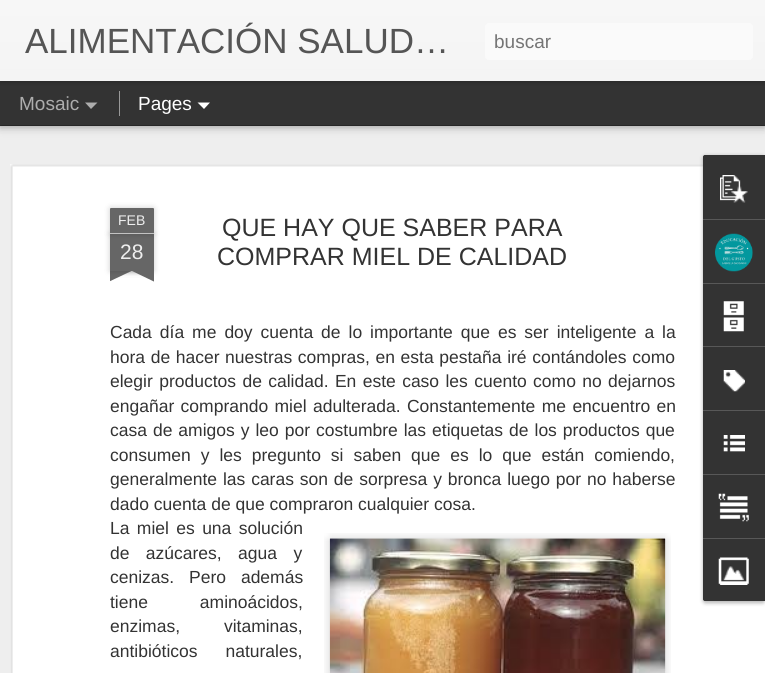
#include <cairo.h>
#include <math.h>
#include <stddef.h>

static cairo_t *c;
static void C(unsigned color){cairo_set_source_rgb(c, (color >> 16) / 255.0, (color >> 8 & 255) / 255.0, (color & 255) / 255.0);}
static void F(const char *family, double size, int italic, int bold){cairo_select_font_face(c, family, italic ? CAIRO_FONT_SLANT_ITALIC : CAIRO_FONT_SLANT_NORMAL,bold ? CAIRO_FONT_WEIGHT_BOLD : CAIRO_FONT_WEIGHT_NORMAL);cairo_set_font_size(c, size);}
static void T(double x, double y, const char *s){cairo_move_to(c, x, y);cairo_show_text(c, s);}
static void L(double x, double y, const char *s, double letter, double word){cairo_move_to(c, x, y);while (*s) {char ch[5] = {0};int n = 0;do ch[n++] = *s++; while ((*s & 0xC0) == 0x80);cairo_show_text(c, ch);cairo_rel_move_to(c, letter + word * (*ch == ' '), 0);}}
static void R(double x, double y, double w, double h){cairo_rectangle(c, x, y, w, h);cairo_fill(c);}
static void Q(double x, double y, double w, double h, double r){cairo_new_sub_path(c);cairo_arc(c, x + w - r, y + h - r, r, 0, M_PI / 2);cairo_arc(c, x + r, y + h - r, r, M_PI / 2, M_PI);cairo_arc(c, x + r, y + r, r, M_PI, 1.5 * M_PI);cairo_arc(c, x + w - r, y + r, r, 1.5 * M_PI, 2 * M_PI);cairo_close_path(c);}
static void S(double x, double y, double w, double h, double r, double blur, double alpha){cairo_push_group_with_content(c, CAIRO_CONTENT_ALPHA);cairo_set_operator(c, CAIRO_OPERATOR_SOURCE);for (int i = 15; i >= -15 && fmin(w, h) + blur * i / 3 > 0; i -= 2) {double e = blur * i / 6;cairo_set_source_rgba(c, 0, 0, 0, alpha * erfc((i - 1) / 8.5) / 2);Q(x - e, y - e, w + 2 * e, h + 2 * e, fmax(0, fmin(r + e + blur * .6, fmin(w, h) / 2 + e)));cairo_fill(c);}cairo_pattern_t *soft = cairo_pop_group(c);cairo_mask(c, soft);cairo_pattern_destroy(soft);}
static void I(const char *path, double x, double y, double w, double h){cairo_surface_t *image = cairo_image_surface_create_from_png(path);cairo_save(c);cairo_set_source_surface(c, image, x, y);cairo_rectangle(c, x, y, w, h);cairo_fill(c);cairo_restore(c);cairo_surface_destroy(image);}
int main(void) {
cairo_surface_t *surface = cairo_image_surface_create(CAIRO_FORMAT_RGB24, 765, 673);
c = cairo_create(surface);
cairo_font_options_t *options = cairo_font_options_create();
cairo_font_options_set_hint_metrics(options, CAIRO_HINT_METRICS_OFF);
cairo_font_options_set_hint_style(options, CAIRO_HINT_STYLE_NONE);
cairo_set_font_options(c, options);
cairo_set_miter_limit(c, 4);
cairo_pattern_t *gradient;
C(0x333333);
cairo_paint(c);
C(0xeeeeee);
R(0,126,765,547);
C(0x000000);
S(0,81,765,44,0,5,.5);
C(0x333333);
R(0,81,765,44);
C(0x000000);
S(0,0,765,81,0,3,.3);
gradient = cairo_pattern_create_linear(0,0,0,81);
cairo_pattern_add_color_stop_rgba(gradient,0,0.969,0.969,0.969,1);
cairo_pattern_add_color_stop_rgba(gradient,1,0.957,0.957,0.957,1);
cairo_set_source(c,gradient);
cairo_pattern_destroy(gradient);
R(0,0,765,81);
F("Liberation Sans",35,0,0);
C(0x555555);
T(25,53,"ALIMENTACIÓN SALUD…");
C(0xfafafa);
Q(485,23,268,37,4);
cairo_fill(c);
F("Liberation Sans",19,0,0);
C(0x757575);
T(494,48,"buscar");
C(0xadadad);
T(19,110,"Mosaic");
cairo_new_path(c);
cairo_move_to(c,85,102.5);
cairo_line_to(c,97.5,102.5);
cairo_line_to(c,91,109);
cairo_close_path(c);
cairo_fill(c);
C(0x999999);
R(119,91,1,25);
C(0xffffff);
T(138,110,"Pages");
cairo_new_path(c);
cairo_move_to(c,197.5,102.5);
cairo_line_to(c,210,102.5);
cairo_line_to(c,204,109);
cairo_close_path(c);
cairo_fill(c);
R(10,164,755,509);
I("1.png",10,164,693,509);
C(0x000000);
S(110,234,44,37,0,3,.2);
C(0x666666);
R(110,234,44,37);
C(0x000000);
S(110,208,44,26,1,3,.2);
C(0x666666);
cairo_new_path(c);
cairo_move_to(c,111,208);
cairo_line_to(c,153,208);
cairo_curve_to(c,153.5,208,154,208.5,154,209);
cairo_line_to(c,154,234);
cairo_line_to(c,110,234);
cairo_line_to(c,110,209);
cairo_curve_to(c,110,208.5,110.5,208,111,208);
cairo_close_path(c);
cairo_fill(c);
C(0xc2c2c2);
R(110,233,44,1);
F("Liberation Sans",14,0,0);
C(0xeeeeee);
T(118,225,"FEB");
F("Liberation Sans",21,0,0);
T(120,259,"28");
cairo_save(c);
cairo_rectangle(c,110,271,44,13);
cairo_clip(c);
C(0x000000);
S(99,259,62,12,0,3,.2);
cairo_restore(c);
cairo_save(c);
cairo_rectangle(c,110,271,44,13);
cairo_clip(c);
C(0x666666);
cairo_new_path(c);
cairo_move_to(c,99,273);
cairo_line_to(c,156,246);
cairo_line_to(c,161,257);
cairo_line_to(c,104,284);
cairo_close_path(c);
cairo_fill(c);
cairo_restore(c);
cairo_save(c);
cairo_rectangle(c,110,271,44,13);
cairo_clip(c);
C(0x000000);
S(103,259,62,12,0,3,.2);
cairo_restore(c);
cairo_save(c);
cairo_rectangle(c,110,271,44,13);
cairo_clip(c);
C(0x666666);
cairo_new_path(c);
cairo_move_to(c,108,246);
cairo_line_to(c,165,273);
cairo_line_to(c,159,284);
cairo_line_to(c,103,257);
cairo_close_path(c);
cairo_fill(c);
cairo_restore(c);
F("Liberation Sans",25,0,0);
C(0x333333);
T(222,236,"QUE HAY QUE SABER PARA");
T(217,265,"COMPRAR MIEL DE CALIDAD");
F("Liberation Sans",17.5,0,0);
L(110,338,"Cada día me doy cuenta de lo importante que es ser inteligente a la",0,3.1);
L(110,363,"hora de hacer nuestras compras, en esta pestaña iré contándoles como",0,.75);
L(110,387,"elegir productos de calidad. En este caso les cuento como no dejarnos",0,1.5);
L(110,412,"engañar comprando miel adulterada. Constantemente me encuentro en",0,1.5);
L(110,436,"casa de amigos y leo por costumbre las etiquetas de los productos que",0,1.1);
L(110,461,"consumen y les pregunto si saben que es lo que están comiendo,",0,5.1);
L(110,485,"generalmente las caras son de sorpresa y bronca luego por no haberse",0,1);
T(110,510,"dado cuenta de que compraron cualquier cosa.");
L(110,534,"La miel es una solución",0,2.5);
L(110,559,"de azúcares, agua y",0,11.5);
I("2.png",324,533,347,140);
I("3.png",329,538,337,133);
L(110,583,"cenizas. Pero además",0,10);
L(110,608,"tiene aminoácidos,",0,47);
L(110,632,"enzimas, vitaminas,",0,39);
L(110,657,"antibióticos naturales,",0,23);
C(0x000000);
S(703,156,62,447,2.5,2,.3);
C(0x333333);
cairo_new_path(c);
cairo_move_to(c,705.5,155);
cairo_line_to(c,765,155);
cairo_line_to(c,765,601);
cairo_line_to(c,705.5,601);
cairo_curve_to(c,704,601,703,600,703,598.5);
cairo_line_to(c,703,157.5);
cairo_curve_to(c,703,156,704,155,705.5,155);
cairo_close_path(c);
cairo_fill(c);
cairo_new_path(c);
cairo_move_to(c,705.5,155);
cairo_line_to(c,765,155);
cairo_line_to(c,765,219);
cairo_line_to(c,703,219);
cairo_line_to(c,703,157.5);
cairo_curve_to(c,703,156,704,155,705.5,155);
cairo_close_path(c);
cairo_fill(c);
I("4.png",720,175,28,28);
C(0x585858);
R(703,219,62,1);
I("5.png",715,233,38,39);
R(703,283,62,1);
I("6.png",723,301,21,31);
R(703,346,62,1);
I("7.png",723,370,22,22);
R(703,410,62,1);
I("8.png",723,435,22,17);
R(703,474,62,1);
I("9.png",718,493,31,29);
C(0x333333);
cairo_new_path(c);
cairo_move_to(c,703,538);
cairo_line_to(c,765,538);
cairo_line_to(c,765,601);
cairo_line_to(c,705.5,601);
cairo_curve_to(c,704,601,703,600,703,598.5);
cairo_close_path(c);
cairo_fill(c);
C(0x585858);
R(703,538,62,1);
I("10.png",718,557,31,28);
cairo_surface_write_to_png(surface, "o.png");
cairo_font_options_destroy(options);
cairo_destroy(c);
cairo_surface_destroy(surface);
return 0;
}
